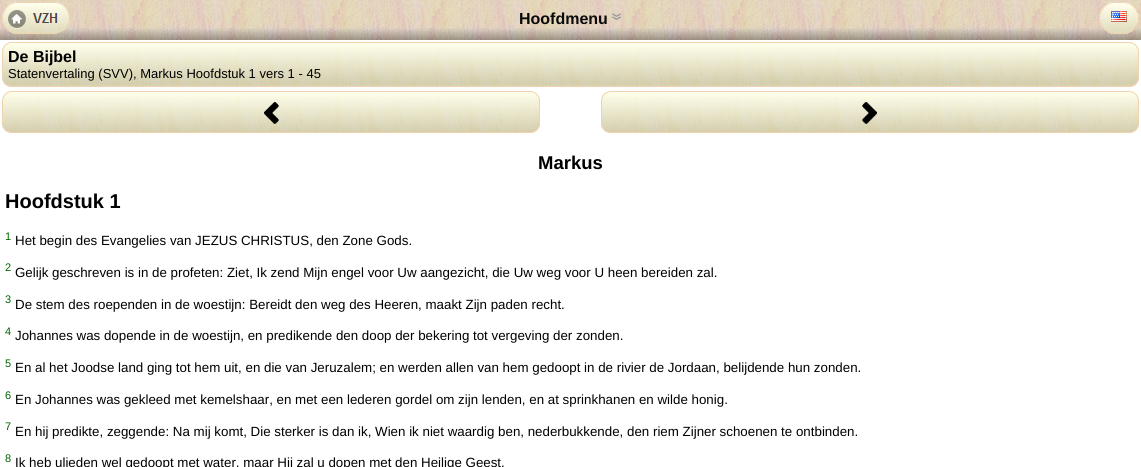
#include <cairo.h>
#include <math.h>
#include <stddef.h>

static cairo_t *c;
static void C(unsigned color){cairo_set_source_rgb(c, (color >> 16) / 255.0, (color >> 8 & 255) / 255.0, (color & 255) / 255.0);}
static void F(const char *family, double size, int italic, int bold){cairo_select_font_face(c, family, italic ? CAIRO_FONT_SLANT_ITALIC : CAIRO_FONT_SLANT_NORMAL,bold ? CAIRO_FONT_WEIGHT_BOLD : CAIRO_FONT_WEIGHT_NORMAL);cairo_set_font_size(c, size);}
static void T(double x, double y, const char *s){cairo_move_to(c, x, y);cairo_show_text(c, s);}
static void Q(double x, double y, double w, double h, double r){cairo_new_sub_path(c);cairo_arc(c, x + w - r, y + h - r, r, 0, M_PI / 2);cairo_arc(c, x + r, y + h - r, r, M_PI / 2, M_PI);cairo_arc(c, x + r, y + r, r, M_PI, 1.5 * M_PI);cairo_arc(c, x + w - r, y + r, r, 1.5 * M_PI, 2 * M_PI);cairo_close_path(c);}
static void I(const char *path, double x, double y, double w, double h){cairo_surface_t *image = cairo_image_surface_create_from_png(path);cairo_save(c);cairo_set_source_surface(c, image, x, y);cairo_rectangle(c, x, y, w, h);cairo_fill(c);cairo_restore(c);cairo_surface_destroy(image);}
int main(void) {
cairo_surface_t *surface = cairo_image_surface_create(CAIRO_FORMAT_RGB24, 1141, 467);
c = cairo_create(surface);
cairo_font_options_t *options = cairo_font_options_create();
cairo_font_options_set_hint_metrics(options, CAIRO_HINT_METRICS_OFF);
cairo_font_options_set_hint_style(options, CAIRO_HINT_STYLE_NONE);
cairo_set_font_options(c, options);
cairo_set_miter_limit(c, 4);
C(0xffffff);
cairo_paint(c);
I("2.png",0,0,1141,40);
I("1.png",2,2,68,32);
F("Liberation Sans",16,0,1);
C(0x0a0a0a);
T(519,24,"Hoofdmenu");
I("3.png",612,13,9,7);
I("4.png",1099,2,40,32);
I("5.png",1111,11,16,11);
I("6.png",2,43,1137,44);
Q(2.5,42.5,1136,44,9.5);
C(0xf1d2ad);
cairo_set_line_width(c,1);
cairo_stroke(c);
C(0x000000);
T(8,62,"De Bijbel");
F("Liberation Sans",13,0,0);
T(8,78,"Statenvertaling (SVV), Markus Hoofdstuk 1 vers 1 - 45");
I("7.png",2,92,538,41);
Q(2.5,91.5,537,41,9.5);
C(0xf1d2ad);
cairo_stroke(c);
I("8.png",264,102,15,22);
I("7.png",601,92,538,41);
Q(601.5,91.5,537,41,9.5);
cairo_stroke(c);
I("9.png",862,102,15,22);
F("Liberation Sans",18.5,0,1);
C(0x000000);
T(538,169,"Markus");
F("Liberation Sans",20,0,1);
T(5,208,"Hoofdstuk 1");
F("Liberation Sans",11,0,0);
C(0x006400);
T(5,240,"1");
F("Liberation Sans",13.33,0,0);
C(0x000000);
T(15,245,"Het begin des Evangelies van JEZUS CHRISTUS, den Zone Gods.");
F("Liberation Sans",11,0,0);
C(0x006400);
T(5,271,"2");
F("Liberation Sans",13.33,0,0);
C(0x000000);
T(15,277,"Gelijk geschreven is in de profeten: Ziet, Ik zend Mijn engel voor Uw aangezicht, die Uw weg voor U heen bereiden zal.");
F("Liberation Sans",11,0,0);
C(0x006400);
T(5,303,"3");
F("Liberation Sans",13.33,0,0);
C(0x000000);
T(15,309,"De stem des roependen in de woestijn: Bereidt den weg des Heeren, maakt Zijn paden recht.");
F("Liberation Sans",11,0,0);
C(0x006400);
T(5,335,"4");
F("Liberation Sans",13.33,0,0);
C(0x000000);
T(15,340,"Johannes was dopende in de woestijn, en predikende den doop der bekering tot vergeving der zonden.");
F("Liberation Sans",11,0,0);
C(0x006400);
T(5,367,"5");
F("Liberation Sans",13.33,0,0);
C(0x000000);
T(15,372,"En al het Joodse land ging tot hem uit, en die van Jeruzalem; en werden allen van hem gedoopt in de rivier de Jordaan, belijdende hun zonden.");
F("Liberation Sans",11,0,0);
C(0x006400);
T(5,399,"6");
F("Liberation Sans",13.33,0,0);
C(0x000000);
T(15,404,"En Johannes was gekleed met kemelshaar, en met een lederen gordel om zijn lenden, en at sprinkhanen en wilde honig.");
F("Liberation Sans",11,0,0);
C(0x006400);
T(5,430,"7");
F("Liberation Sans",13.33,0,0);
C(0x000000);
T(15,436,"En hij predikte, zeggende: Na mij komt, Die sterker is dan ik, Wien ik niet waardig ben, nederbukkende, den riem Zijner schoenen te ontbinden.");
F("Liberation Sans",11,0,0);
C(0x006400);
T(5,462,"8");
F("Liberation Sans",13.33,0,0);
C(0x000000);
T(15,467,"Ik heb ulieden wel gedoopt met water, maar Hij zal u dopen met den Heilige Geest.");
cairo_surface_write_to_png(surface, "o.png");
cairo_font_options_destroy(options);
cairo_destroy(c);
cairo_surface_destroy(surface);
return 0;
}
